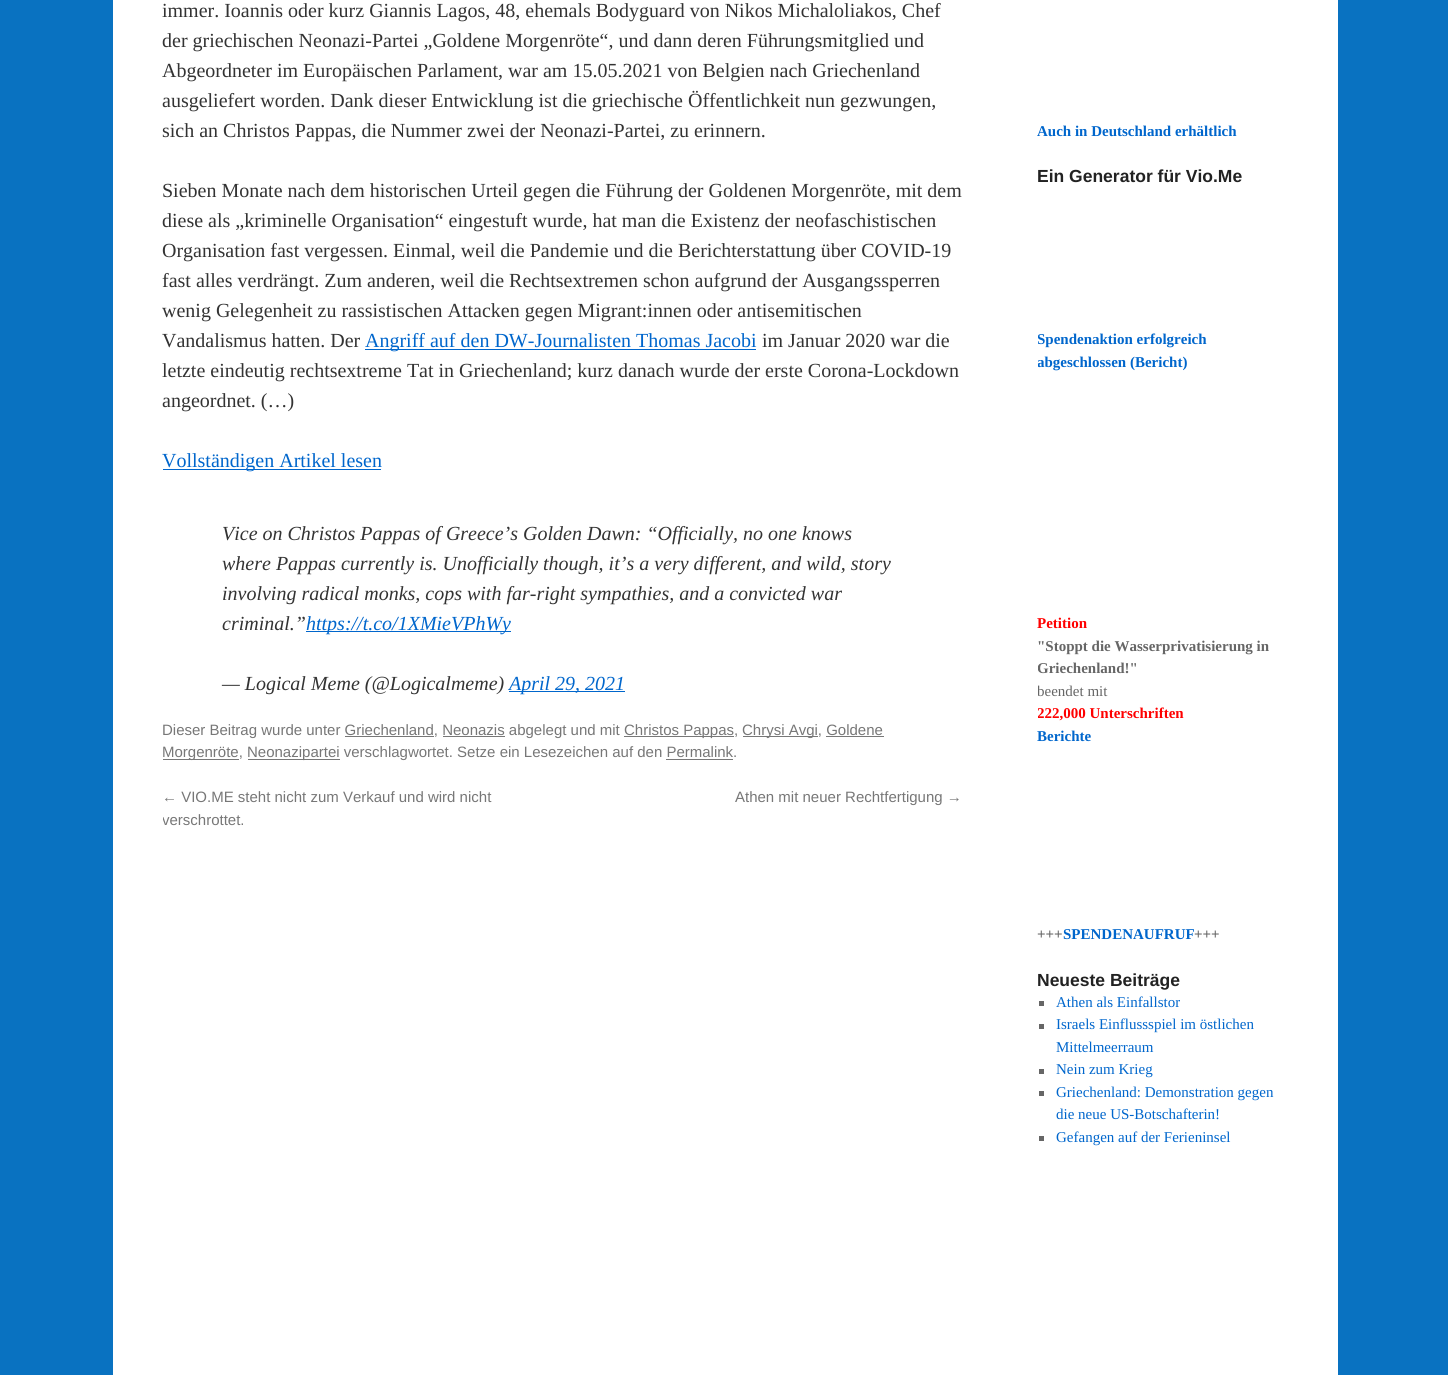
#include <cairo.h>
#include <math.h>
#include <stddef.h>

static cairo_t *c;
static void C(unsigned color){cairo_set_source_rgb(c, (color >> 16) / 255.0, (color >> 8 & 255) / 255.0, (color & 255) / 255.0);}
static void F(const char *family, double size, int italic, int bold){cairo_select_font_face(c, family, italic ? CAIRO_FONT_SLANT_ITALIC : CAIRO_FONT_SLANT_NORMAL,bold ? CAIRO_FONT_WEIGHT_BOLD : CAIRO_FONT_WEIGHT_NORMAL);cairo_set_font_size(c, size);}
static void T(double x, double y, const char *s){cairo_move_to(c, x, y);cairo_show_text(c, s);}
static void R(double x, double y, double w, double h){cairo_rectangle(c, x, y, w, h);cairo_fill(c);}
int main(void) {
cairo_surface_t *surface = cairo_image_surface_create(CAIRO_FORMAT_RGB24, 1448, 1375);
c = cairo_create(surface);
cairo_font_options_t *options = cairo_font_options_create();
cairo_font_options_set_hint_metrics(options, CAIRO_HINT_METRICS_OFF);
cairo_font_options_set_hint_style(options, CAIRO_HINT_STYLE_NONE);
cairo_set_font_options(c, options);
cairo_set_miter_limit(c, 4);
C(0x0972c1);
cairo_paint(c);
C(0xffffff);
R(113,0,1225,1375);
F("Liberation Serif",20,0,0);
C(0x333333);
T(162,17,"immer. Ioannis oder kurz Giannis Lagos, 48, ehemals Bodyguard von Nikos Michaloliakos, Chef");
T(162,47,"der griechischen Neonazi-Partei „Goldene Morgenröte“, und dann deren Führungsmitglied und");
T(162,77,"Abgeordneter im Europäischen Parlament, war am 15.05.2021 von Belgien nach Griechenland");
T(162,107,"ausgeliefert worden. Dank dieser Entwicklung ist die griechische Öffentlichkeit nun gezwungen,");
T(162,137,"sich an Christos Pappas, die Nummer zwei der Neonazi-Partei, zu erinnern.");
T(162,197,"Sieben Monate nach dem historischen Urteil gegen die Führung der Goldenen Morgenröte, mit dem");
T(162,227,"diese als „kriminelle Organisation“ eingestuft wurde, hat man die Existenz der neofaschistischen");
T(162,257,"Organisation fast vergessen. Einmal, weil die Pandemie und die Berichterstattung über COVID-19");
T(162,287,"fast alles verdrängt. Zum anderen, weil die Rechtsextremen schon aufgrund der Ausgangssperren");
T(162,317,"wenig Gelegenheit zu rassistischen Attacken gegen Migrant:innen oder antisemitischen");
T(162,347,"Vandalismus hatten. Der");
C(0x0066cc);
R(365,349,391,1);
T(365,347,"Angriff auf den DW-Journalisten Thomas Jacobi");
C(0x333333);
T(762,347,"im Januar 2020 war die");
T(162,377,"letzte eindeutig rechtsextreme Tat in Griechenland; kurz danach wurde der erste Corona-Lockdown");
T(162,407,"angeordnet. (…)");
C(0x0066cc);
R(163,469,218,1);
T(162,467,"Vollständigen Artikel lesen");
F("Liberation Serif",20,1,0);
C(0x333333);
T(222,540,"Vice on Christos Pappas of Greece’s Golden Dawn: “Officially, no one knows");
T(222,570,"where Pappas currently is. Unofficially though, it’s a very different, and wild, story");
T(222,600,"involving radical monks, cops with far-right sympathies, and a convicted war");
T(222,630,"criminal.”");
C(0x0066cc);
R(306,631,205,1);
T(306,630,"https://t.co/1XMieVPhWy");
C(0x333333);
T(222,690,"— Logical Meme (@Logicalmeme)");
C(0x0066cc);
R(509,691,116,1);
T(509,690,"April 29, 2021");
F("Liberation Sans",15,0,0);
C(0x777777);
T(162,735,"Dieser Beitrag wurde unter Griechenland, Neonazis abgelegt und mit");
R(624,736,110,1);
T(624,735,"Christos Pappas,");
R(743,736,75,1);
T(742,735,"Chrysi Avgi, Goldene");
R(345,736,89,1);
R(443,736,62,1);
R(163,759,76,1);
T(162,757,"Morgenröte,");
R(826,736,58,1);
R(248,759,92,1);
T(247,757,"Neonazipartei verschlagwortet. Setze ein Lesezeichen auf den Permalink.");
R(666,759,67,1);
T(162,802,"← VIO.ME steht nicht zum Verkauf und wird nicht");
cairo_save(c);
cairo_rectangle(c,163,786,800,45);
cairo_clip(c);
T(162,825,"verschrottet.");
cairo_restore(c);
T(735,802,"Athen mit neuer Rechtfertigung →");
F("Liberation Serif",15,0,1);
C(0x0066cc);
T(1037,136,"Auch in Deutschland erhältlich");
F("Liberation Sans",17.5,0,1);
C(0x222222);
T(1037,182,"Ein Generator für Vio.Me");
cairo_save(c);
cairo_rectangle(c,1038,0,275,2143);
cairo_clip(c);
F("Liberation Serif",15,0,1);
C(0x0066cc);
T(1037,344,"Spendenaktion erfolgreich");
T(1037,367,"abgeschlossen (Bericht)");
cairo_restore(c);
F("Liberation Serif",15,0,1);
C(0xff0000);
T(1037,628,"Petition");
C(0x666666);
T(1037,651,"\"Stoppt die Wasserprivatisierung in");
cairo_save(c);
cairo_rectangle(c,1038,0,275,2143);
cairo_clip(c);
T(1037,673,"Griechenland!\"");
F("Liberation Serif",15,0,0);
T(1037,696,"beendet mit");
F("Liberation Serif",15,0,1);
C(0xff0000);
T(1037,718,"222,000 Unterschriften");
cairo_restore(c);
C(0x0066cc);
T(1037,741,"Berichte");
C(0x666666);
T(1037,939,"+++");
C(0x0066cc);
T(1063,939,"SPENDENAUFRUF");
C(0x666666);
T(1194,939,"+++");
F("Liberation Sans",17.5,0,1);
C(0x222222);
T(1037,986,"Neueste Beiträge");
C(0x666666);
R(1039,1001,5,5);
F("Liberation Serif",15,0,0);
C(0x0066cc);
T(1056,1007,"Athen als Einfallstor");
C(0x666666);
R(1039,1024,5,5);
C(0x0066cc);
T(1056,1029,"Israels Einflussspiel im östlichen");
T(1056,1052,"Mittelmeerraum");
C(0x666666);
R(1039,1069,5,5);
C(0x0066cc);
T(1056,1074,"Nein zum Krieg");
C(0x666666);
R(1039,1091,5,5);
C(0x0066cc);
T(1056,1097,"Griechenland: Demonstration gegen");
T(1056,1119,"die neue US-Botschafterin!");
C(0x666666);
R(1039,1136,5,5);
C(0x0066cc);
T(1056,1142,"Gefangen auf der Ferieninsel");
cairo_surface_write_to_png(surface, "o.png");
cairo_font_options_destroy(options);
cairo_destroy(c);
cairo_surface_destroy(surface);
return 0;
}
